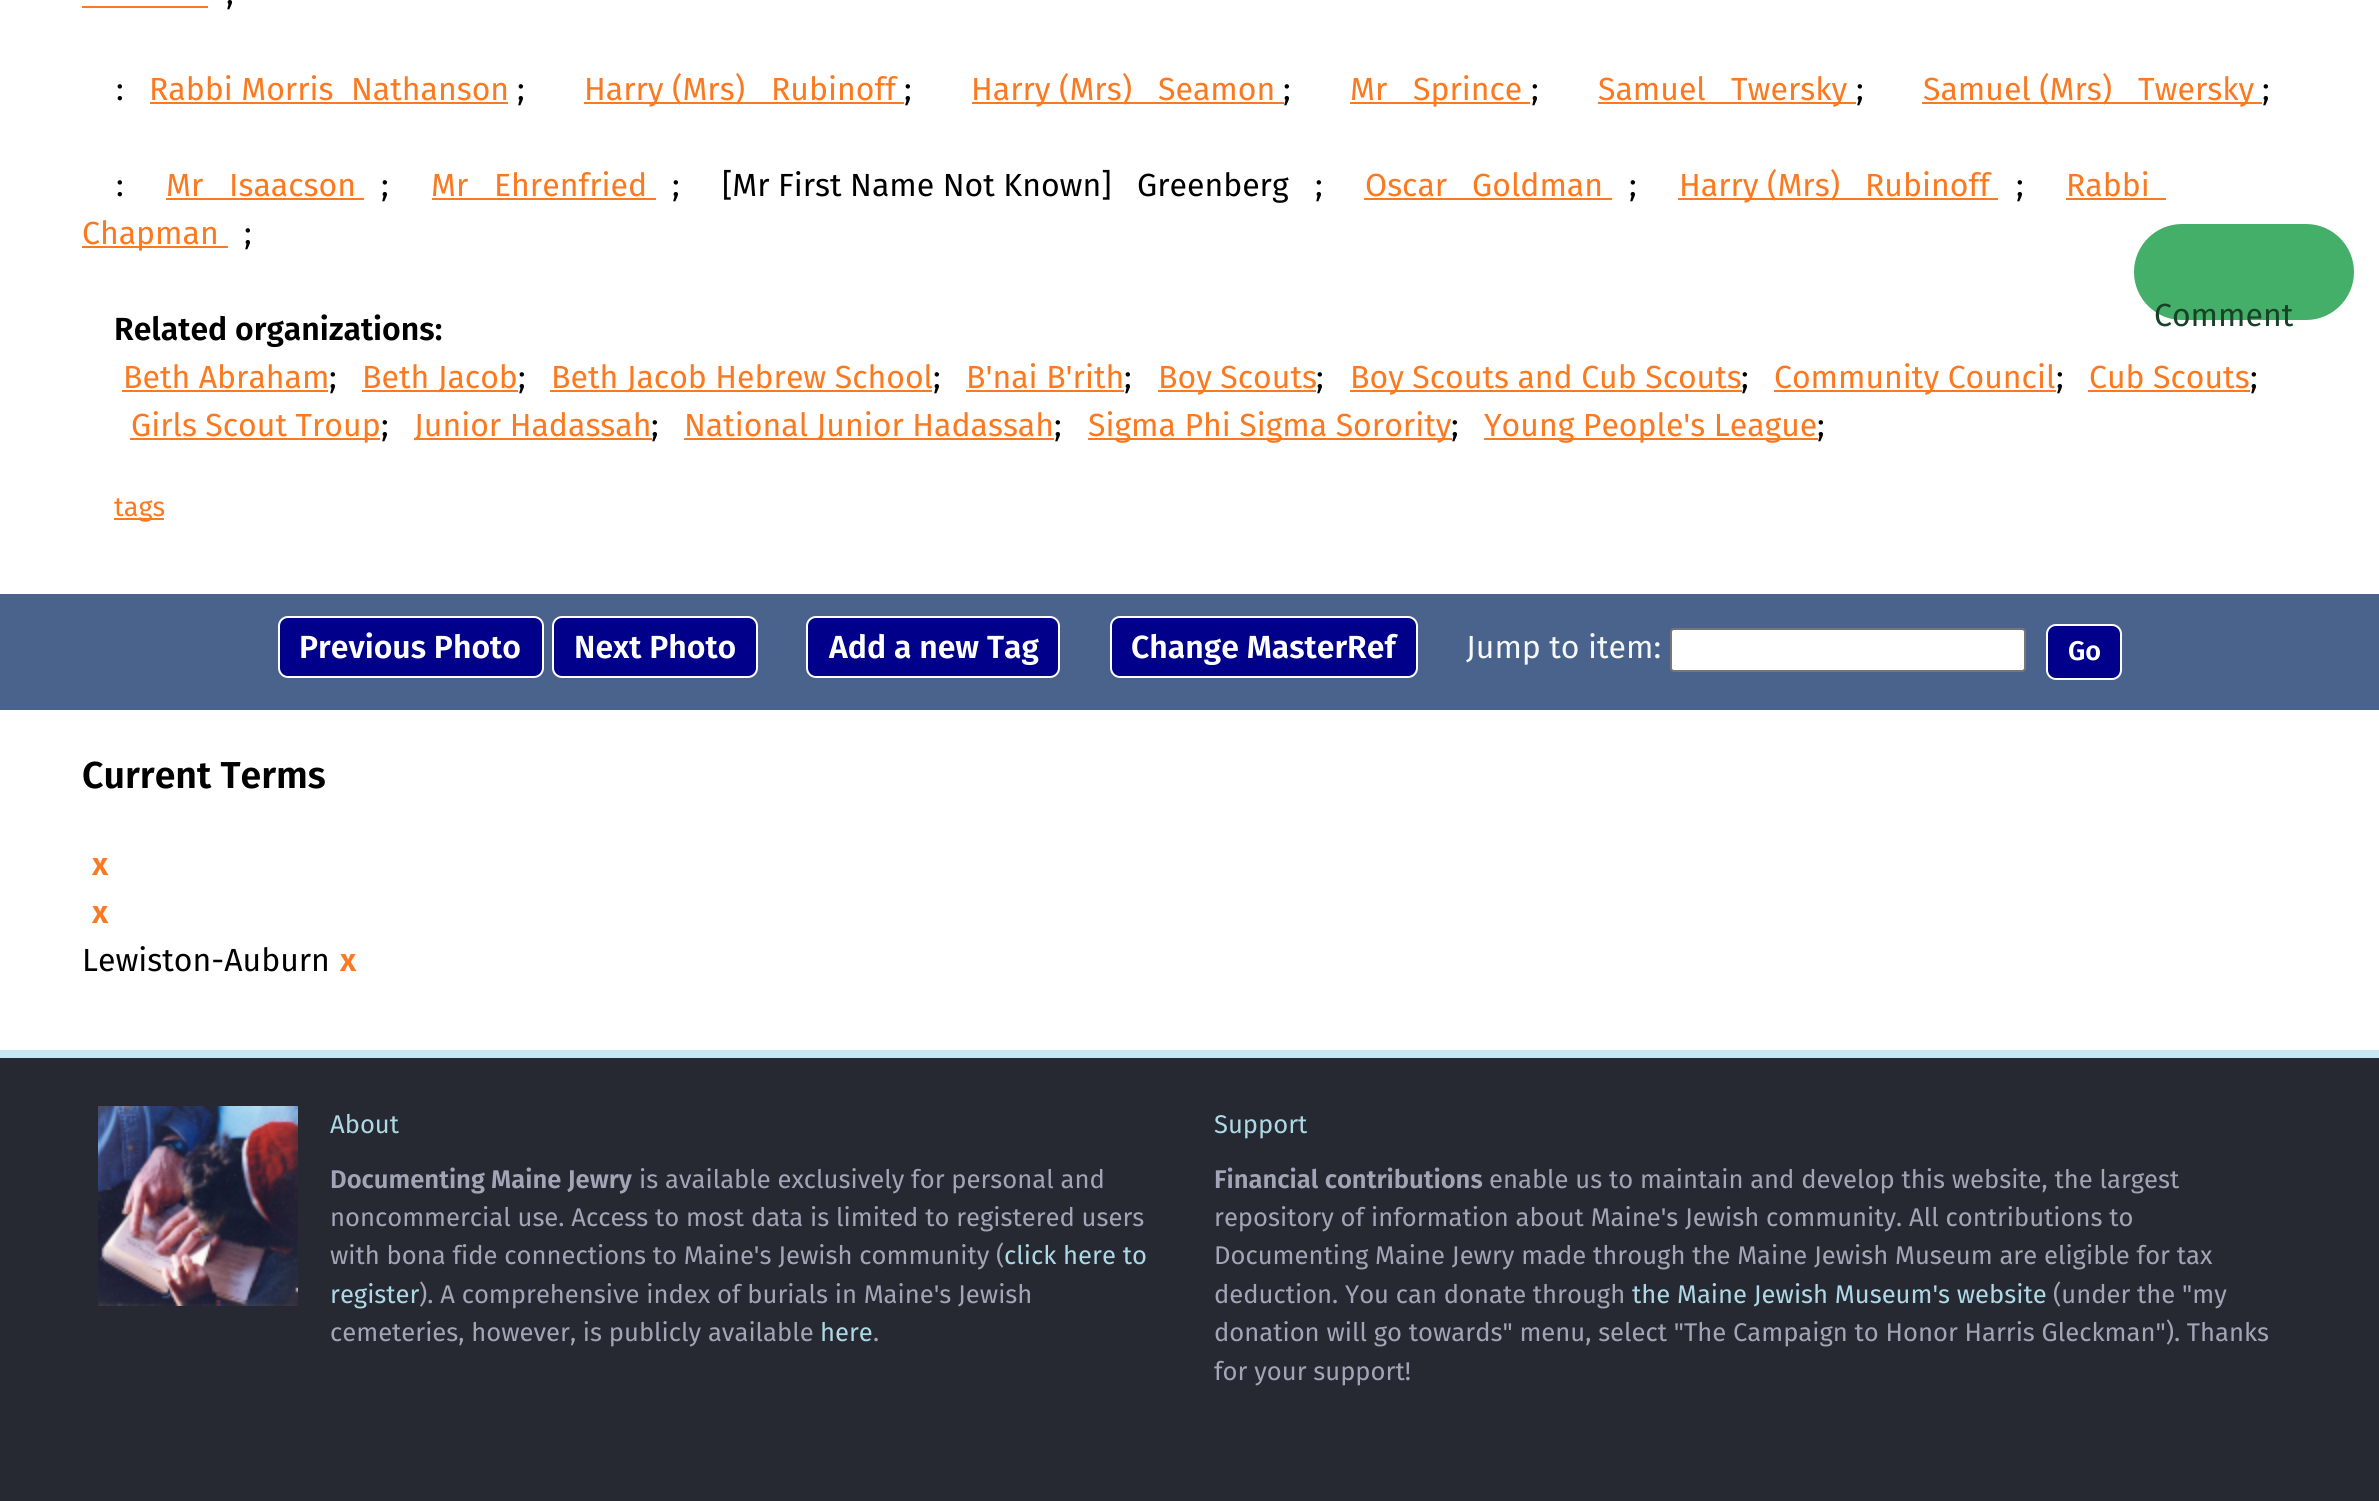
#include <cairo.h>
#include <math.h>
#include <stddef.h>

static cairo_t *c;
static void C(unsigned color){cairo_set_source_rgb(c, (color >> 16) / 255.0, (color >> 8 & 255) / 255.0, (color & 255) / 255.0);}
static void F(const char *family, double size, int italic, int bold){cairo_select_font_face(c, family, italic ? CAIRO_FONT_SLANT_ITALIC : CAIRO_FONT_SLANT_NORMAL,bold ? CAIRO_FONT_WEIGHT_BOLD : CAIRO_FONT_WEIGHT_NORMAL);cairo_set_font_size(c, size);}
static void T(double x, double y, const char *s){cairo_move_to(c, x, y);cairo_show_text(c, s);}
static void R(double x, double y, double w, double h){cairo_rectangle(c, x, y, w, h);cairo_fill(c);}
static void Q(double x, double y, double w, double h, double r){cairo_new_sub_path(c);cairo_arc(c, x + w - r, y + h - r, r, 0, M_PI / 2);cairo_arc(c, x + r, y + h - r, r, M_PI / 2, M_PI);cairo_arc(c, x + r, y + r, r, M_PI, 1.5 * M_PI);cairo_arc(c, x + w - r, y + r, r, 1.5 * M_PI, 2 * M_PI);cairo_close_path(c);}
static void I(const char *path, double x, double y, double w, double h){cairo_surface_t *image = cairo_image_surface_create_from_png(path);cairo_save(c);cairo_set_source_surface(c, image, x, y);cairo_rectangle(c, x, y, w, h);cairo_fill(c);cairo_restore(c);cairo_surface_destroy(image);}
int main(void) {
cairo_surface_t *surface = cairo_image_surface_create(CAIRO_FORMAT_RGB24, 2379, 1501);
c = cairo_create(surface);
cairo_font_options_t *options = cairo_font_options_create();
cairo_font_options_set_hint_metrics(options, CAIRO_HINT_METRICS_OFF);
cairo_font_options_set_hint_style(options, CAIRO_HINT_STYLE_NONE);
cairo_set_font_options(c, options);
cairo_set_miter_limit(c, 4);
C(0xffffff);
cairo_paint(c);
C(0xfa7921);
R(82,6,126,2);
F("Fira Sans",32,0,0);
C(0x000000);
T(226,4,";");
T(116,100,":");
C(0xfa7921);
T(149,100,"Rabbi Morris");
T(351,100,"Nathanson");
R(150,102,358,2);
C(0x000000);
T(517,100,";");
C(0xfa7921);
R(584,102,320,2);
T(584,100,"Harry (Mrs)");
T(771,100,"Rubinoff");
C(0x000000);
T(904,100,";");
C(0xfa7921);
R(972,102,312,2);
T(971,100,"Harry (Mrs)");
T(1158,100,"Seamon");
C(0x000000);
T(1283,100,";");
C(0xfa7921);
T(1350,100,"Mr");
R(1350,102,180,2);
T(1413,100,"Sprince");
C(0x000000);
T(1531,100,";");
C(0xfa7921);
T(1598,100,"Samuel");
R(1598,102,258,2);
T(1731,100,"Twersky");
C(0x000000);
T(1856,100,";");
C(0xfa7921);
R(1922,102,340,2);
T(1923,100,"Samuel (Mrs)");
T(2138,100,"Twersky");
C(0x000000);
T(2262,100,";");
T(116,196,":");
C(0xfa7921);
T(166,196,"Mr");
T(229,196,"Isaacson");
R(166,198,198,2);
C(0x000000);
T(381,196,";");
C(0xfa7921);
T(431,196,"Mr");
R(432,198,224,2);
T(494,196,"Ehrenfried");
C(0x000000);
T(672,196,";");
T(722,196,"[Mr First Name Not Known]");
T(1137,196,"Greenberg");
T(1315,196,";");
C(0xfa7921);
T(1365,196,"Oscar");
R(1364,198,248,2);
T(1472,196,"Goldman");
C(0x000000);
T(1629,196,";");
C(0xfa7921);
R(1678,198,320,2);
T(1679,196,"Harry (Mrs)");
T(1865,196,"Rubinoff");
C(0x000000);
T(2016,196,";");
C(0xfa7921);
T(2066,196,"Rabbi");
R(2066,198,100,2);
R(82,246,146,2);
T(82,244,"Chapman");
C(0x000000);
T(244,244,";");
F("Fira Sans SemiBold",32,0,0);
T(114,340,"Related organizations:");
F("Fira Sans",32,0,0);
C(0xfa7921);
T(123,388,"Beth Abraham");
R(122,390,206,2);
C(0x000000);
T(329,388,";");
C(0xfa7921);
R(362,390,156,2);
T(362,388,"Beth Jacob");
C(0x000000);
T(518,388,";");
C(0xfa7921);
R(550,390,382,2);
T(551,388,"Beth Jacob Hebrew School");
C(0x000000);
T(933,388,";");
C(0xfa7921);
T(966,388,"B'nai B'rith");
R(966,390,158,2);
C(0x000000);
T(1124,388,";");
C(0xfa7921);
R(1158,390,158,2);
T(1158,388,"Boy Scouts");
C(0x000000);
T(1316,388,";");
C(0xfa7921);
R(1350,390,392,2);
T(1350,388,"Boy Scouts and Cub Scouts");
C(0x000000);
T(1741,388,";");
C(0xfa7921);
R(1774,390,282,2);
T(1774,388,"Community Council");
C(0x000000);
T(2056,388,";");
C(0xfa7921);
T(2089,388,"Cub Scouts");
R(2088,390,162,2);
C(0x000000);
T(2250,388,";");
C(0xfa7921);
R(130,438,250,2);
T(131,436,"Girls Scout Troup");
C(0x000000);
T(381,436,";");
C(0xfa7921);
R(414,438,238,2);
T(414,436,"Junior Hadassah");
C(0x000000);
T(651,436,";");
C(0xfa7921);
R(684,438,370,2);
T(684,436,"National Junior Hadassah");
C(0x000000);
T(1054,436,";");
C(0xfa7921);
R(1088,438,364,2);
T(1088,436,"Sigma Phi Sigma Sorority");
C(0x000000);
T(1451,436,";");
C(0xfa7921);
R(1484,438,334,2);
T(1484,436,"Young People's League");
C(0x000000);
T(1817,436,";");
C(0xfa7921);
R(114,518,50,2);
F("Fira Sans",27,0,0);
T(114,516,"tags");
C(0x44af69);
Q(2134,224,220,96,48);
cairo_fill(c);
F("Fira Sans",32,0,0);
C(0x194127);
T(2154,326,"Comment");
C(0x4a638c);
R(0,594,2379,116);
C(0x00008b);
Q(279,617,264,60,9);
cairo_fill_preserve(c);
C(0xffffff);
cairo_stroke(c);
F("Fira Sans SemiBold",32,0,0);
T(299,658,"Previous Photo");
C(0x00008b);
Q(553,617,204,60,9);
cairo_fill_preserve(c);
C(0xffffff);
cairo_stroke(c);
T(574,658,"Next Photo");
C(0x00008b);
Q(807,617,252,60,9);
cairo_fill_preserve(c);
C(0xffffff);
cairo_stroke(c);
T(829,658,"Add a new Tag");
C(0x00008b);
Q(1111,617,306,60,9);
cairo_fill_preserve(c);
C(0xffffff);
cairo_stroke(c);
T(1131,658,"Change MasterRef");
F("Fira Sans",32,0,0);
C(0xf5f7fa);
T(1466,658,"Jump to item:");
C(0xffffff);
Q(1671,629,354,42,3);
cairo_fill_preserve(c);
C(0x767676);
cairo_stroke(c);
C(0x00008b);
Q(2047,625,74,54,9);
cairo_fill_preserve(c);
C(0xffffff);
cairo_stroke(c);
F("Fira Sans SemiBold",27,0,0);
T(2068,660,"Go");
F("Fira Sans SemiBold",37.5,0,0);
C(0x000000);
T(82,788,"Current Terms");
F("Fira Sans SemiBold",32,0,0);
C(0xfa7921);
T(92,875,"x");
T(92,923,"x");
F("Fira Sans",32,0,0);
C(0x000000);
T(82,971,"Lewiston-Auburn");
F("Fira Sans SemiBold",32,0,0);
C(0xfa7921);
T(340,971,"x");
C(0x272932);
R(0,1058,2379,443);
C(0xc7e8f3);
R(0,1050,2379,8);
I("1.png",98,1106,200,200);
F("Fira Sans",25.6,0,0);
C(0xadd8e6);
T(330,1133,"About");
F("Fira Sans SemiBold",25.6,0,0);
C(0xa2a5b6);
T(330,1188,"Documenting Maine Jewry");
F("Fira Sans",25.6,0,0);
T(639,1188,"is available exclusively for personal and");
T(330,1226,"noncommercial use. Access to most data is limited to registered users");
T(330,1264,"with bona fide connections to Maine's Jewish community (");
C(0xadd8e6);
T(1004,1264,"click here to");
T(330,1303,"register");
C(0xa2a5b6);
T(419,1303,"). A comprehensive index of burials in Maine's Jewish");
T(330,1341,"cemeteries, however, is publicly available");
C(0xadd8e6);
T(820,1341,"here");
C(0xa2a5b6);
T(873,1341,".");
C(0xadd8e6);
T(1214,1133,"Support");
F("Fira Sans SemiBold",25.6,0,0);
C(0xa2a5b6);
T(1214,1188,"Financial contributions");
F("Fira Sans",25.6,0,0);
T(1489,1188,"enable us to maintain and develop this website, the largest");
T(1214,1226,"repository of information about Maine's Jewish community. All contributions to");
T(1214,1264,"Documenting Maine Jewry made through the Maine Jewish Museum are eligible for tax");
T(1214,1303,"deduction. You can donate through");
C(0xadd8e6);
T(1632,1303,"the Maine Jewish Museum's website");
C(0xa2a5b6);
T(2053,1303,"(under the \"my");
T(1214,1341,"donation will go towards\" menu, select \"The Campaign to Honor Harris Gleckman\"). Thanks");
T(1214,1380,"for your support!");
cairo_surface_write_to_png(surface, "o.png");
cairo_font_options_destroy(options);
cairo_destroy(c);
cairo_surface_destroy(surface);
return 0;
}
